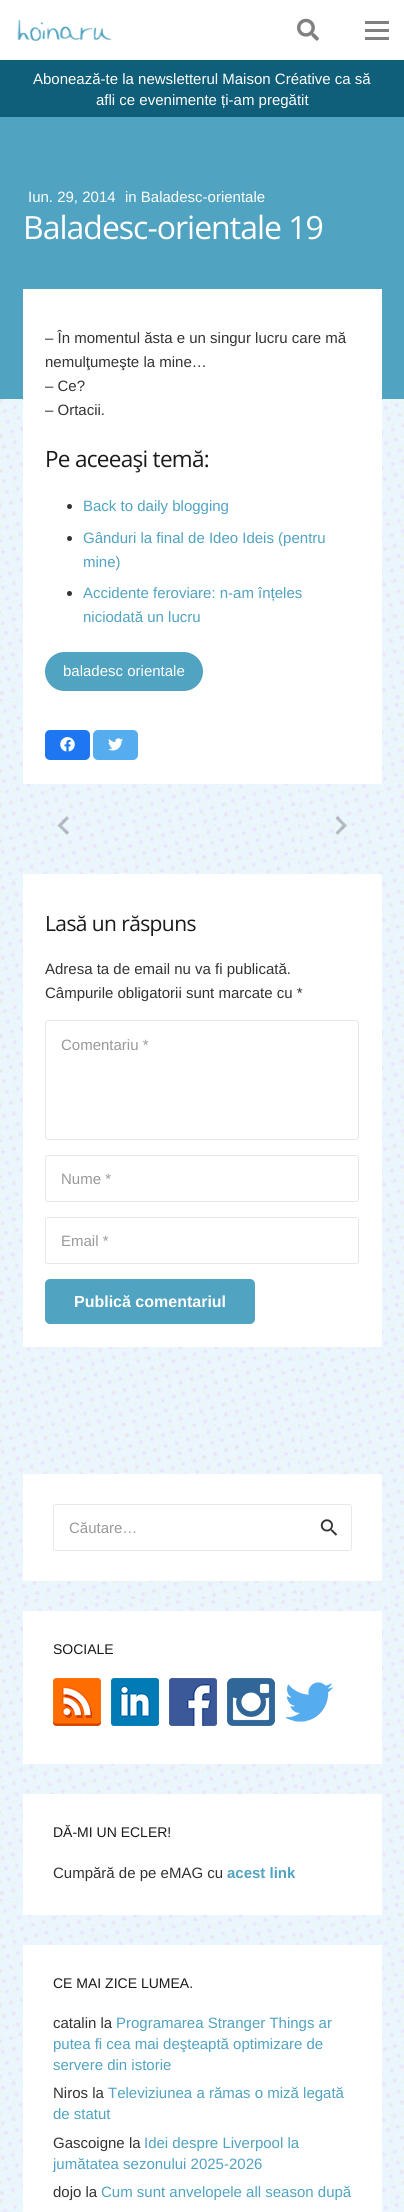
#include <cairo.h>
#include <math.h>
#include <stddef.h>

static cairo_t *c;
static void C(unsigned color){cairo_set_source_rgb(c, (color >> 16) / 255.0, (color >> 8 & 255) / 255.0, (color & 255) / 255.0);}
static void F(const char *family, double size, int italic, int bold){cairo_select_font_face(c, family, italic ? CAIRO_FONT_SLANT_ITALIC : CAIRO_FONT_SLANT_NORMAL,bold ? CAIRO_FONT_WEIGHT_BOLD : CAIRO_FONT_WEIGHT_NORMAL);cairo_set_font_size(c, size);}
static void T(double x, double y, const char *s){cairo_move_to(c, x, y);cairo_show_text(c, s);}
static void L(double x, double y, const char *s, double letter, double word){cairo_move_to(c, x, y);while (*s) {char ch[5] = {0};int n = 0;do ch[n++] = *s++; while ((*s & 0xC0) == 0x80);cairo_show_text(c, ch);cairo_rel_move_to(c, letter + word * (*ch == ' '), 0);}}
static void R(double x, double y, double w, double h){cairo_rectangle(c, x, y, w, h);cairo_fill(c);}
static void Q(double x, double y, double w, double h, double r){cairo_new_sub_path(c);cairo_arc(c, x + w - r, y + h - r, r, 0, M_PI / 2);cairo_arc(c, x + r, y + h - r, r, M_PI / 2, M_PI);cairo_arc(c, x + r, y + r, r, M_PI, 1.5 * M_PI);cairo_arc(c, x + w - r, y + r, r, 1.5 * M_PI, 2 * M_PI);cairo_close_path(c);}
static void I(const char *path, double x, double y, double w, double h){cairo_surface_t *image = cairo_image_surface_create_from_png(path);cairo_save(c);cairo_set_source_surface(c, image, x, y);cairo_rectangle(c, x, y, w, h);cairo_fill(c);cairo_restore(c);cairo_surface_destroy(image);}
int main(void) {
cairo_surface_t *surface = cairo_image_surface_create(CAIRO_FORMAT_RGB24, 404, 2212);
c = cairo_create(surface);
cairo_font_options_t *options = cairo_font_options_create();
cairo_font_options_set_hint_metrics(options, CAIRO_HINT_METRICS_OFF);
cairo_font_options_set_hint_style(options, CAIRO_HINT_STYLE_NONE);
cairo_set_font_options(c, options);
cairo_set_miter_limit(c, 4);
C(0xffffff);
cairo_paint(c);
I("1.png",17,20,95,21);
I("2.png",297,18,22,23);
C(0x808080);
R(365,29,24,3);
R(365,21,24,3);
R(365,37,24,3);
C(0x0f5e7a);
R(0,60,404,57);
F("Liberation Sans",15,0,0);
C(0xffffff);
T(33,84,"Abonează-te la newsletterul Maison Créative ca să");
T(96,105,"afli ce evenimente ți-am pregătit");
C(0x50a3c1);
R(0,117,404,282);
C(0xffffff);
T(28,202,"Iun. 29, 2014");
T(125,202,"in Baladesc-orientale");
F("Open Sans",32,0,0);
L(23,239,"Baladesc-orientale 19",-1,0);
I("3.png",0,399,404,1813);
R(23,289,359,495);
F("Liberation Sans",15,0,0);
C(0x333333);
T(45,343,"– În momentul ăsta e un singur lucru care mă");
T(45,367,"nemulţumeşte la mine…");
T(45,391,"– Ce?");
T(45,415,"– Ortacii.");
F("Open Sans",22.5,0,0);
C(0x1a1a1a);
L(45,467,"Pe aceeaşi temă:",-.7,0);
C(0x333333);
cairo_new_path(c);
cairo_arc(c,69.5,506.5,2.5,0,2 * M_PI);
cairo_fill(c);
F("Liberation Sans",15,0,0);
C(0x50a3c1);
T(83,511,"Back to daily blogging");
C(0x333333);
cairo_new_path(c);
cairo_arc(c,69.5,538.5,2.5,0,2 * M_PI);
cairo_fill(c);
C(0x50a3c1);
T(83,543,"Gânduri la final de Ideo Ideis (pentru");
T(83,567,"mine)");
C(0x333333);
cairo_new_path(c);
cairo_arc(c,69.5,593.5,2.5,0,2 * M_PI);
cairo_fill(c);
C(0x50a3c1);
T(83,598,"Accidente feroviare: n-am înțeles");
T(83,622,"niciodată un lucru");
Q(45,652,158,39,19.5);
cairo_fill(c);
C(0xffffff);
T(63,676,"baladesc orientale");
C(0x1e77f0);
Q(45,730,45,30,5);
cairo_fill(c);
I("4.png",60,737,15,15);
C(0x55acee);
Q(93,730,45,30,5);
cairo_fill(c);
I("5.png",108,738,15,13);
cairo_set_source_rgba(c,0.2,0.2,0.2,0.3);
cairo_new_path(c);
cairo_move_to(c,69,832.5);
cairo_line_to(c,67,835);
cairo_line_to(c,57.5,825.5);
cairo_line_to(c,67,816);
cairo_line_to(c,69,818.5);
cairo_line_to(c,62,825.5);
cairo_close_path(c);
cairo_fill(c);
cairo_new_path(c);
cairo_move_to(c,335.5,832.5);
cairo_line_to(c,342.5,825.5);
cairo_line_to(c,335.5,818.5);
cairo_line_to(c,337.5,816);
cairo_line_to(c,347,825.5);
cairo_line_to(c,337.5,835);
cairo_close_path(c);
cairo_fill(c);
C(0xffffff);
R(23,874,359,473);
F("Open Sans",21,0,0);
C(0x1a1a1a);
L(45,931,"Lasă un răspuns",-.6,0);
F("Liberation Sans",15,0,0);
C(0x333333);
T(45,974,"Adresa ta de email nu va fi publicată.");
T(45,998,"Câmpurile obligatorii sunt marcate cu *");
Q(45.5,1020.5,313,119,2.5);
C(0xe8e8e8);
cairo_set_line_width(c,1);
cairo_stroke(c);
C(0x999999);
T(61,1050,"Comentariu *");
Q(45.5,1155.5,313,46,2.5);
C(0xe8e8e8);
cairo_stroke(c);
C(0x999999);
T(61,1184,"Nume *");
Q(45.5,1217.5,313,46,2.5);
C(0xe8e8e8);
cairo_stroke(c);
C(0x999999);
T(61,1246,"Email *");
C(0x50a3c1);
Q(45,1279,210,45,5);
cairo_fill(c);
F("Liberation Sans",16,0,1);
C(0xffffff);
T(74,1307,"Publică comentariul");
R(23,1474,359,107);
Q(53.5,1504.5,298,46,2.5);
C(0xe8e8e8);
cairo_stroke(c);
F("Liberation Sans",15,0,0);
C(0x999999);
T(69,1533,"Căutare…");
I("6.png",320,1519,18,17);
C(0xffffff);
R(23,1611,359,153);
F("Liberation Sans",14,0,0);
C(0x1a1a1a);
T(53,1654,"SOCIALE");
I("7.png",53,1678,48,48);
I("8.png",111,1678,48,48);
I("9.png",169,1678,48,48);
I("10.png",227,1678,48,48);
I("11.png",285,1682,48,40);
C(0xffffff);
R(23,1794,359,121);
C(0x1a1a1a);
T(53,1837,"DĂ-MI UN ECLER!");
F("Liberation Sans",15,0,0);
C(0x333333);
T(53,1878,"Cumpără de pe eMAG cu");
F("Liberation Sans",15,0,1);
C(0x50a3c1);
T(227,1878,"acest link");
C(0xffffff);
R(23,1945,359,267);
F("Liberation Sans",14,0,0);
C(0x1a1a1a);
T(53,1988,"CE MAI ZICE LUMEA.");
F("Liberation Sans",15,0,0);
C(0x333333);
T(53,2028,"catalin la");
C(0x50a3c1);
T(116,2028,"Programarea Stranger Things ar");
T(53,2049,"putea fi cea mai deşteaptă optimizare de");
T(53,2070,"servere din istorie");
C(0x333333);
T(53,2098,"Niros la");
C(0x50a3c1);
T(108,2098,"Televiziunea a rămas o miză legată");
T(53,2119,"de statut");
C(0x333333);
T(53,2148,"Gascoigne la");
C(0x50a3c1);
T(144,2148,"Idei despre Liverpool la");
T(53,2169,"jumătatea sezonului 2025-2026");
C(0x333333);
T(53,2197,"dojo la");
C(0x50a3c1);
T(101,2197,"Cum sunt anvelopele all season după");
cairo_surface_write_to_png(surface, "o.png");
cairo_font_options_destroy(options);
cairo_destroy(c);
cairo_surface_destroy(surface);
return 0;
}
